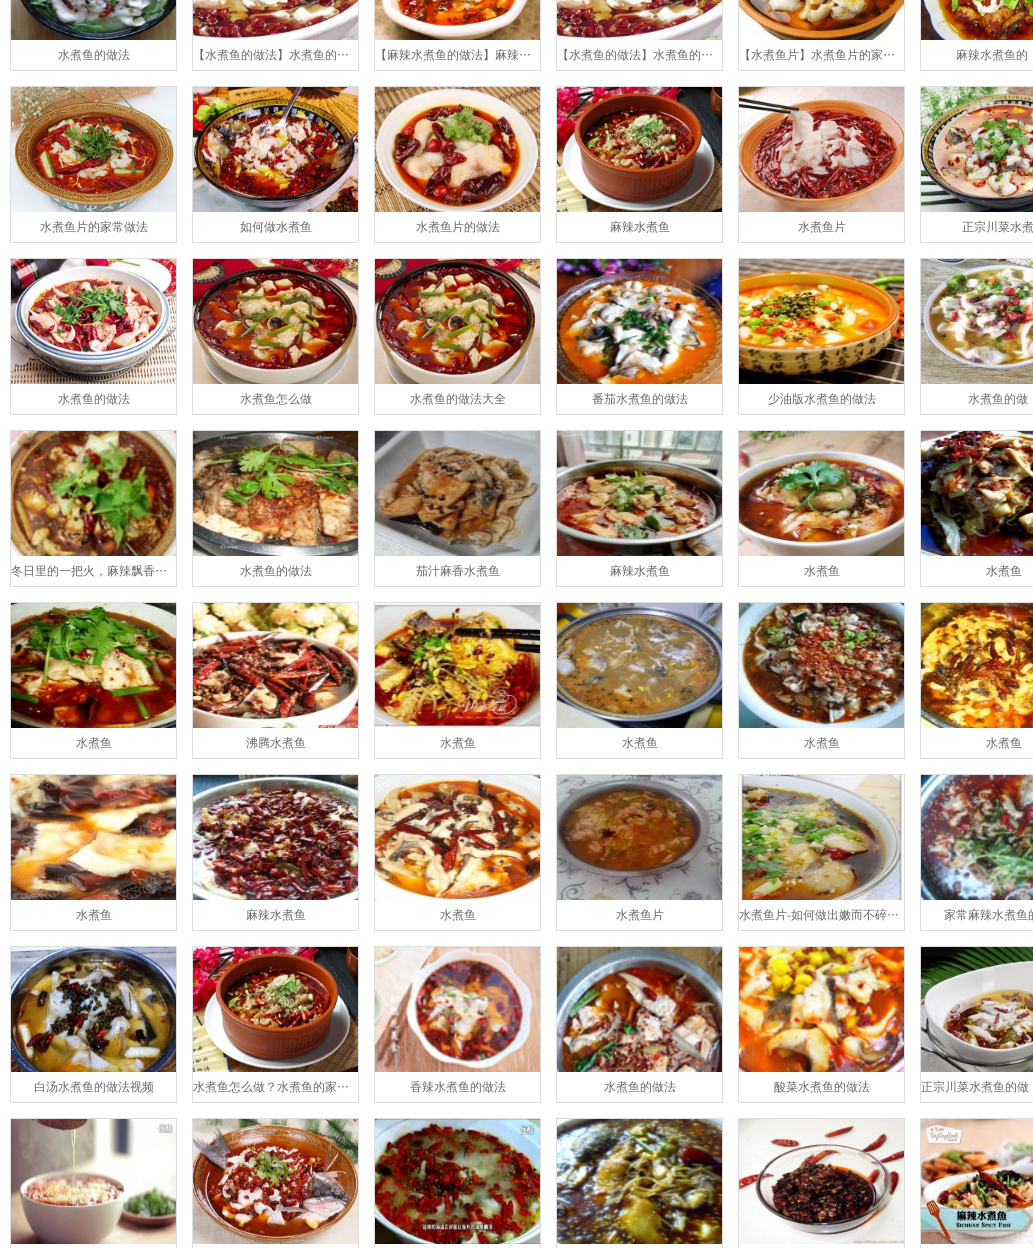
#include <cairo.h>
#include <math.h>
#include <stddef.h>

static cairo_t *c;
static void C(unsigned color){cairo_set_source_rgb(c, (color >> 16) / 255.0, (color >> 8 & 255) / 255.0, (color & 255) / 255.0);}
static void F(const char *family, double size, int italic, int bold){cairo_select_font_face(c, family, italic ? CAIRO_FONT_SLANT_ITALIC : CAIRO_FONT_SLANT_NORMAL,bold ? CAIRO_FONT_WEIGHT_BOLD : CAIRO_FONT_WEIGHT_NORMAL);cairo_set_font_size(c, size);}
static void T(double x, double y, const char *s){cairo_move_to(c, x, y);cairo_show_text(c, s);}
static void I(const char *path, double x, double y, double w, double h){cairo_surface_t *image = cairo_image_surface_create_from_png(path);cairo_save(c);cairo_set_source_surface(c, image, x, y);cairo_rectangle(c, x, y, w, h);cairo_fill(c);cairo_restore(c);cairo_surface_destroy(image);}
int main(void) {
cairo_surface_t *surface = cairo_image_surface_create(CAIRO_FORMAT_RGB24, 1033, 1248);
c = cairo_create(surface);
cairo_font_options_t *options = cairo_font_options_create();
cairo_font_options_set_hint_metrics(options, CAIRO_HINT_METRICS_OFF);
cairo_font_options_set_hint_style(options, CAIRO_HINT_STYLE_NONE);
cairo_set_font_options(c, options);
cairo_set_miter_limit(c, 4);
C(0xffffff);
cairo_paint(c);
cairo_rectangle(c,10.5,-.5,166,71);
C(0xdddddd);
cairo_set_line_width(c,1);
cairo_stroke(c);
I("1.png",11,0,165,40);
F("WenQuanYi Zen Hei Medium",12,0,0);
C(0x666666);
T(58,59,"水煮鱼的做法");
cairo_rectangle(c,192.5,-.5,166,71);
C(0xdddddd);
cairo_stroke(c);
I("2.png",193,0,165,40);
C(0x666666);
T(193,59,"【水煮鱼的做法】水煮鱼的…");
cairo_rectangle(c,374.5,-.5,166,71);
C(0xdddddd);
cairo_stroke(c);
I("3.png",375,0,165,40);
C(0x666666);
T(375,59,"【麻辣水煮鱼的做法】麻辣…");
cairo_rectangle(c,556.5,-.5,166,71);
C(0xdddddd);
cairo_stroke(c);
I("4.png",557,0,165,40);
C(0x666666);
T(557,59,"【水煮鱼的做法】水煮鱼的…");
cairo_rectangle(c,738.5,-.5,166,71);
C(0xdddddd);
cairo_stroke(c);
I("5.png",739,0,165,40);
C(0x666666);
T(739,59,"【水煮鱼片】水煮鱼片的家…");
cairo_rectangle(c,920.5,-.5,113,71);
C(0xdddddd);
cairo_stroke(c);
I("6.png",921,0,112,40);
C(0x666666);
T(956,59,"麻辣水煮鱼的");
cairo_rectangle(c,10.5,86.5,166,156);
C(0xdddddd);
cairo_stroke(c);
I("7.png",11,87,165,125);
C(0x666666);
T(40,231,"水煮鱼片的家常做法");
cairo_rectangle(c,192.5,86.5,166,156);
C(0xdddddd);
cairo_stroke(c);
I("8.png",193,87,165,125);
C(0x666666);
T(240,231,"如何做水煮鱼");
cairo_rectangle(c,374.5,86.5,166,156);
C(0xdddddd);
cairo_stroke(c);
I("9.png",375,87,165,125);
C(0x666666);
T(416,231,"水煮鱼片的做法");
cairo_rectangle(c,556.5,86.5,166,156);
C(0xdddddd);
cairo_stroke(c);
I("10.png",557,87,165,125);
C(0x666666);
T(610,231,"麻辣水煮鱼");
cairo_rectangle(c,738.5,86.5,166,156);
C(0xdddddd);
cairo_stroke(c);
I("11.png",739,87,165,125);
C(0x666666);
T(798,231,"水煮鱼片");
cairo_rectangle(c,920.5,86.5,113,156);
C(0xdddddd);
cairo_stroke(c);
I("12.png",921,87,112,125);
C(0x666666);
T(962,231,"正宗川菜水煮");
cairo_rectangle(c,10.5,258.5,166,156);
C(0xdddddd);
cairo_stroke(c);
I("13.png",11,259,165,125);
C(0x666666);
T(58,403,"水煮鱼的做法");
cairo_rectangle(c,192.5,258.5,166,156);
C(0xdddddd);
cairo_stroke(c);
I("14.png",193,259,165,125);
C(0x666666);
T(240,403,"水煮鱼怎么做");
cairo_rectangle(c,374.5,258.5,166,156);
C(0xdddddd);
cairo_stroke(c);
I("15.png",375,259,165,125);
C(0x666666);
T(410,403,"水煮鱼的做法大全");
cairo_rectangle(c,556.5,258.5,166,156);
C(0xdddddd);
cairo_stroke(c);
I("16.png",557,259,165,125);
C(0x666666);
T(592,403,"番茄水煮鱼的做法");
cairo_rectangle(c,738.5,258.5,166,156);
C(0xdddddd);
cairo_stroke(c);
I("17.png",739,259,165,125);
C(0x666666);
T(768,403,"少油版水煮鱼的做法");
cairo_rectangle(c,920.5,258.5,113,156);
C(0xdddddd);
cairo_stroke(c);
I("18.png",921,259,112,125);
C(0x666666);
T(968,403,"水煮鱼的做");
cairo_rectangle(c,10.5,430.5,166,156);
C(0xdddddd);
cairo_stroke(c);
I("19.png",11,431,165,125);
C(0x666666);
T(11,575,"冬日里的一把火，麻辣飘香…");
cairo_rectangle(c,192.5,430.5,166,156);
C(0xdddddd);
cairo_stroke(c);
I("20.png",193,431,165,125);
C(0x666666);
T(240,575,"水煮鱼的做法");
cairo_rectangle(c,374.5,430.5,166,156);
C(0xdddddd);
cairo_stroke(c);
I("21.png",375,431,165,125);
C(0x666666);
T(416,575,"茄汁麻香水煮鱼");
cairo_rectangle(c,556.5,430.5,166,156);
C(0xdddddd);
cairo_stroke(c);
I("22.png",557,431,165,125);
C(0x666666);
T(610,575,"麻辣水煮鱼");
cairo_rectangle(c,738.5,430.5,166,156);
C(0xdddddd);
cairo_stroke(c);
I("23.png",739,431,165,125);
C(0x666666);
T(804,575,"水煮鱼");
cairo_rectangle(c,920.5,430.5,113,156);
C(0xdddddd);
cairo_stroke(c);
I("24.png",921,431,112,125);
C(0x666666);
T(986,575,"水煮鱼");
cairo_rectangle(c,10.5,602.5,166,156);
C(0xdddddd);
cairo_stroke(c);
I("25.png",11,603,165,125);
C(0x666666);
T(76,747,"水煮鱼");
cairo_rectangle(c,192.5,602.5,166,156);
C(0xdddddd);
cairo_stroke(c);
I("26.png",193,603,165,125);
C(0x666666);
T(246,747,"沸腾水煮鱼");
cairo_rectangle(c,374.5,602.5,166,156);
C(0xdddddd);
cairo_stroke(c);
I("27.png",375,603,165,125);
C(0x666666);
T(440,747,"水煮鱼");
cairo_rectangle(c,556.5,602.5,166,156);
C(0xdddddd);
cairo_stroke(c);
I("28.png",557,603,165,125);
C(0x666666);
T(622,747,"水煮鱼");
cairo_rectangle(c,738.5,602.5,166,156);
C(0xdddddd);
cairo_stroke(c);
I("29.png",739,603,165,125);
C(0x666666);
T(804,747,"水煮鱼");
cairo_rectangle(c,920.5,602.5,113,156);
C(0xdddddd);
cairo_stroke(c);
I("30.png",921,603,112,125);
C(0x666666);
T(986,747,"水煮鱼");
cairo_rectangle(c,10.5,774.5,166,156);
C(0xdddddd);
cairo_stroke(c);
I("31.png",11,775,165,125);
C(0x666666);
T(76,919,"水煮鱼");
cairo_rectangle(c,192.5,774.5,166,156);
C(0xdddddd);
cairo_stroke(c);
I("32.png",193,775,165,125);
C(0x666666);
T(246,919,"麻辣水煮鱼");
cairo_rectangle(c,374.5,774.5,166,156);
C(0xdddddd);
cairo_stroke(c);
I("33.png",375,775,165,125);
C(0x666666);
T(440,919,"水煮鱼");
cairo_rectangle(c,556.5,774.5,166,156);
C(0xdddddd);
cairo_stroke(c);
I("34.png",557,775,165,125);
C(0x666666);
T(616,919,"水煮鱼片");
cairo_rectangle(c,738.5,774.5,166,156);
C(0xdddddd);
cairo_stroke(c);
I("35.png",739,775,165,125);
C(0x666666);
T(739,919,"水煮鱼片");
F("Liberation Serif",12,0,0);
T(787,919,"-");
F("WenQuanYi Zen Hei Medium",12,0,0);
T(791,919,"如何做出嫩而不碎…");
cairo_rectangle(c,920.5,774.5,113,156);
C(0xdddddd);
cairo_stroke(c);
I("36.png",921,775,112,125);
C(0x666666);
T(944,919,"家常麻辣水煮鱼的");
cairo_rectangle(c,10.5,946.5,166,156);
C(0xdddddd);
cairo_stroke(c);
I("37.png",11,947,165,125);
C(0x666666);
T(34,1091,"白汤水煮鱼的做法视频");
cairo_rectangle(c,192.5,946.5,166,156);
C(0xdddddd);
cairo_stroke(c);
I("38.png",193,947,165,125);
C(0x666666);
T(193,1091,"水煮鱼怎么做？水煮鱼的家…");
cairo_rectangle(c,374.5,946.5,166,156);
C(0xdddddd);
cairo_stroke(c);
I("39.png",375,947,165,125);
C(0x666666);
T(410,1091,"香辣水煮鱼的做法");
cairo_rectangle(c,556.5,946.5,166,156);
C(0xdddddd);
cairo_stroke(c);
I("40.png",557,947,165,125);
C(0x666666);
T(604,1091,"水煮鱼的做法");
cairo_rectangle(c,738.5,946.5,166,156);
C(0xdddddd);
cairo_stroke(c);
I("41.png",739,947,165,125);
C(0x666666);
T(774,1091,"酸菜水煮鱼的做法");
cairo_rectangle(c,920.5,946.5,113,156);
C(0xdddddd);
cairo_stroke(c);
I("42.png",921,947,112,125);
C(0x666666);
T(921,1091,"正宗川菜水煮鱼的做");
cairo_rectangle(c,10.5,1118.5,166,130);
C(0xdddddd);
cairo_stroke(c);
I("43.png",11,1119,165,125);
cairo_rectangle(c,192.5,1118.5,166,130);
cairo_stroke(c);
I("44.png",193,1119,165,125);
cairo_rectangle(c,374.5,1118.5,166,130);
cairo_stroke(c);
I("45.png",375,1119,165,125);
cairo_rectangle(c,556.5,1118.5,166,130);
cairo_stroke(c);
I("46.png",557,1119,165,125);
cairo_rectangle(c,738.5,1118.5,166,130);
cairo_stroke(c);
I("47.png",739,1119,165,125);
cairo_rectangle(c,920.5,1118.5,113,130);
cairo_stroke(c);
I("48.png",921,1119,112,125);
cairo_surface_write_to_png(surface, "o.png");
cairo_font_options_destroy(options);
cairo_destroy(c);
cairo_surface_destroy(surface);
return 0;
}
